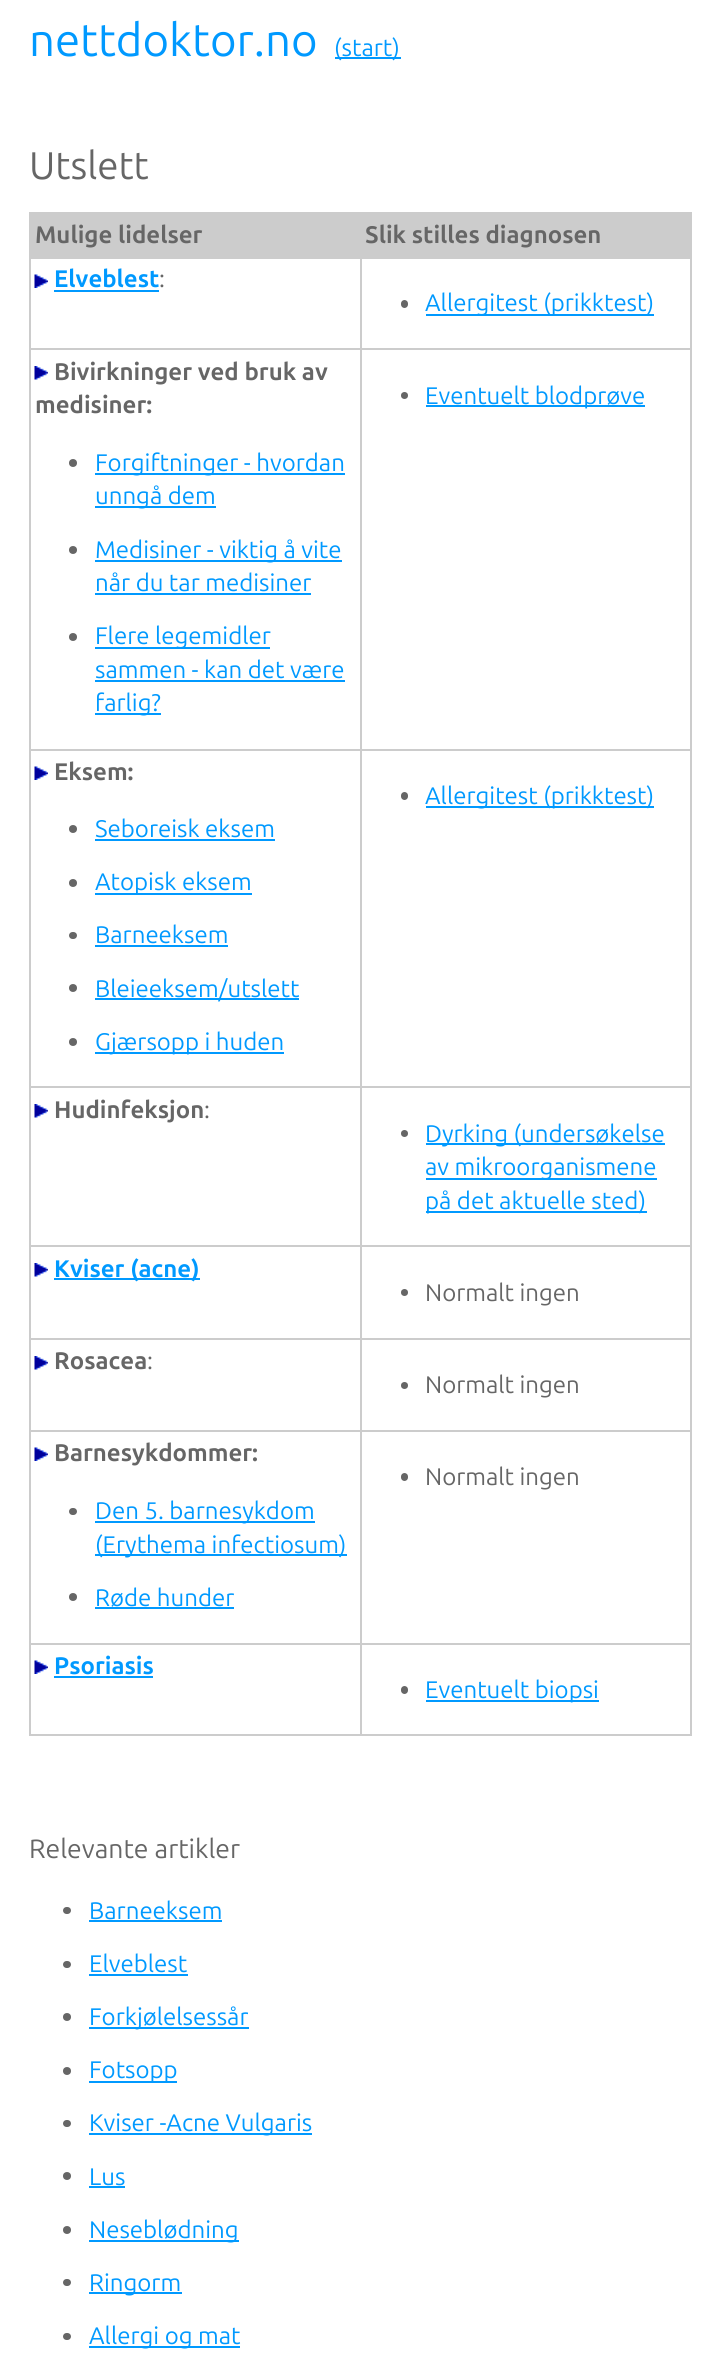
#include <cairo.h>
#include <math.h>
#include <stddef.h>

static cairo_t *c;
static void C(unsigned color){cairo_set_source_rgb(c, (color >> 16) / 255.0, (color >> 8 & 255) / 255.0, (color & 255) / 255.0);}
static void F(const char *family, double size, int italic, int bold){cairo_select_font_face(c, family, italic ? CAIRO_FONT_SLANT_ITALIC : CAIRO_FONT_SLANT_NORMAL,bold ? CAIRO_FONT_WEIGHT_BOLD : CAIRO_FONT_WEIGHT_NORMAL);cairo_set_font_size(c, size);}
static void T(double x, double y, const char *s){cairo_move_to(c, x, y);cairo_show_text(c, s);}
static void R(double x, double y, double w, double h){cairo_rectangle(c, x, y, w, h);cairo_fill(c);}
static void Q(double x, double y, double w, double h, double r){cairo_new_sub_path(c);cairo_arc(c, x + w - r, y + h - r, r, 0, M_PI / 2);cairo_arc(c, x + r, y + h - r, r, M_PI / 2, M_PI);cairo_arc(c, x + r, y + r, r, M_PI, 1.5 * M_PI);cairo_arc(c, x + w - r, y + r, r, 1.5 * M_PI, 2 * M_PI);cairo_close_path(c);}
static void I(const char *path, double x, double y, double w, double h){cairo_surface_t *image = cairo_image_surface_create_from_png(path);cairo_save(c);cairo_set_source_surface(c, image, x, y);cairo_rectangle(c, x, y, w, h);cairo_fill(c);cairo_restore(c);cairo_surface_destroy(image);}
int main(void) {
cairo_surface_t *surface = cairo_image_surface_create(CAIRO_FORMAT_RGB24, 720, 2353);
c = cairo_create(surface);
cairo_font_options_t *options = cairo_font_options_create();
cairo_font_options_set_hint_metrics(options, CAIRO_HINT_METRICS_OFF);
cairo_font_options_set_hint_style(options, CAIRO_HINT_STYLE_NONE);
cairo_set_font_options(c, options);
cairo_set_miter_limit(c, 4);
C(0xffffff);
cairo_paint(c);
F("Ubuntu",45.5,0,0);
C(0x0099ff);
T(29,56,"nettdoktor.no");
R(335,57,66,2);
F("Ubuntu",24,0,0);
T(334,56,"(start)");
F("Ubuntu",38.5,0,0);
C(0x666666);
T(29,179,"Utslett");
C(0xcccccc);
R(29,212,663,2);
R(690,212,2,1524);
R(29,1734,663,2);
R(29,212,2,1524);
R(31,214,659,43);
F("Ubuntu",24,0,1);
C(0x666666);
T(35,243,"Mulige lidelser");
T(365,243,"Slik stilles diagnosen");
C(0xcccccc);
R(360,257,332,2);
R(360,348,332,2);
R(360,749,332,2);
R(360,1086,332,2);
R(360,1245,332,2);
R(360,1338,332,2);
R(360,1430,332,2);
R(360,1643,332,2);
R(360,1643,2,93);
R(29,1643,333,2);
R(360,1430,2,214);
R(29,1430,333,2);
R(360,1338,2,93);
R(29,1338,333,2);
R(360,1245,2,95);
R(29,1245,333,2);
R(360,1086,2,161);
R(29,1086,333,2);
R(360,749,2,339);
R(29,749,333,2);
R(360,348,2,402);
R(29,348,333,2);
R(360,257,2,93);
R(29,257,333,2);
I("1.png",34,274,14,14);
C(0x0099ff);
T(54,287,"Elveblest");
R(54,290,105,2);
F("Ubuntu",24,0,0);
C(0x666666);
T(159,287,":");
Q(401,300,7,8,3.5);
cairo_fill(c);
C(0x0099ff);
R(426,314,228,2);
T(425,311,"Allergitest (prikktest)");
I("2.png",34,366,14,14);
F("Ubuntu",24,0,1);
C(0x666666);
T(54,380,"Bivirkninger ved bruk av");
T(35,413,"medisiner:");
cairo_new_path(c);
cairo_arc(c,73,463,4,0,2 * M_PI);
cairo_fill(c);
C(0x0099ff);
R(95,473,250,2);
F("Ubuntu",24,0,0);
T(95,471,"Forgiftninger - hvordan");
R(95,506,121,2);
T(95,504,"unngå dem");
C(0x666666);
cairo_new_path(c);
cairo_arc(c,73,550,4,0,2 * M_PI);
cairo_fill(c);
C(0x0099ff);
R(95,560,247,2);
T(95,558,"Medisiner - viktig å vite");
T(95,591,"når du tar medisiner");
R(95,593,216,2);
C(0x666666);
cairo_new_path(c);
cairo_arc(c,73,637,4,0,2 * M_PI);
cairo_fill(c);
C(0x0099ff);
R(95,647,175,2);
T(95,644,"Flere legemidler");
T(95,678,"sammen - kan det være");
R(95,680,250,2);
R(95,713,66,2);
T(95,711,"farlig?");
C(0x666666);
cairo_new_path(c);
cairo_arc(c,404.5,395.5,3.5,0,2 * M_PI);
cairo_fill(c);
C(0x0099ff);
R(426,405,219,2);
T(425,404,"Eventuelt blodprøve");
I("1.png",34,766,14,14);
F("Ubuntu",24,0,1);
C(0x666666);
T(54,780,"Eksem:");
cairo_new_path(c);
cairo_arc(c,73,829,4,0,2 * M_PI);
cairo_fill(c);
F("Ubuntu",24,0,0);
C(0x0099ff);
T(95,837,"Seboreisk eksem");
R(95,839,180,2);
C(0x666666);
cairo_new_path(c);
cairo_arc(c,73,883,4,0,2 * M_PI);
cairo_fill(c);
C(0x0099ff);
R(95,893,157,2);
T(95,890,"Atopisk eksem");
C(0x666666);
Q(69,932,8,7,3.5);
cairo_fill(c);
C(0x0099ff);
T(95,943,"Barneeksem");
R(95,945,133,2);
C(0x666666);
cairo_new_path(c);
cairo_arc(c,73,988,4,0,2 * M_PI);
cairo_fill(c);
C(0x0099ff);
R(95,998,204,2);
T(95,997,"Bleieeksem/utslett");
C(0x666666);
cairo_new_path(c);
cairo_arc(c,73,1042,4,0,2 * M_PI);
cairo_fill(c);
C(0x0099ff);
R(95,1052,189,2);
T(95,1050,"Gjærsopp i huden");
C(0x666666);
Q(401,792,7,8,3.5);
cairo_fill(c);
C(0x0099ff);
R(426,806,228,2);
T(425,804,"Allergitest (prikktest)");
I("2.png",34,1104,14,14);
F("Ubuntu",24,0,1);
C(0x666666);
T(54,1118,"Hudinfeksjon");
F("Ubuntu",24,0,0);
T(204,1118,":");
cairo_new_path(c);
cairo_arc(c,404.5,1133.5,3.5,0,2 * M_PI);
cairo_fill(c);
C(0x0099ff);
R(426,1143,239,2);
T(425,1142,"Dyrking (undersøkelse");
R(426,1178,231,2);
T(425,1175,"av mikroorganismene");
R(426,1211,221,2);
T(425,1209,"på det aktuelle sted)");
I("2.png",34,1263,14,14);
R(54,1278,146,2);
F("Ubuntu",24,0,1);
T(54,1277,"Kviser (acne)");
C(0x666666);
cairo_new_path(c);
cairo_arc(c,404.5,1292.5,3.5,0,2 * M_PI);
cairo_fill(c);
F("Ubuntu",24,0,0);
T(425,1301,"Normalt ingen");
I("2.png",34,1356,14,14);
F("Ubuntu",24,0,1);
T(54,1369,"Rosacea");
F("Ubuntu",24,0,0);
T(147,1369,":");
cairo_new_path(c);
cairo_arc(c,404.5,1385.5,3.5,0,2 * M_PI);
cairo_fill(c);
T(425,1393,"Normalt ingen");
I("1.png",34,1447,14,14);
F("Ubuntu",24,0,1);
T(54,1461,"Barnesykdommer:");
Q(69,1508,8,7,3.5);
cairo_fill(c);
C(0x0099ff);
R(95,1521,220,2);
F("Ubuntu",24,0,0);
T(95,1519,"Den 5. barnesykdom");
R(95,1554,252,2);
T(95,1553,"(Erythema infectiosum)");
C(0x666666);
cairo_new_path(c);
cairo_arc(c,73,1597,4,0,2 * M_PI);
cairo_fill(c);
C(0x0099ff);
T(95,1606,"Røde hunder");
R(95,1607,139,2);
C(0x666666);
Q(401,1473,7,8,3.5);
cairo_fill(c);
T(425,1485,"Normalt ingen");
I("1.png",34,1660,14,14);
F("Ubuntu",24,0,1);
C(0x0099ff);
T(54,1674,"Psoriasis");
R(54,1676,99,2);
C(0x666666);
Q(401,1686,7,8,3.5);
cairo_fill(c);
C(0x0099ff);
R(426,1700,173,2);
F("Ubuntu",24,0,0);
T(425,1698,"Eventuelt biopsi");
F("Ubuntu",26.5,0,0);
C(0x666666);
T(29,1858,"Relevante artikler");
Q(63,1907,8,7,3.5);
cairo_fill(c);
F("Ubuntu",24,0,0);
C(0x0099ff);
T(89,1919,"Barneeksem");
R(89,1920,133,2);
C(0x666666);
Q(63,1961,8,7,3.5);
cairo_fill(c);
C(0x0099ff);
T(89,1972,"Elveblest");
R(89,1974,99,2);
C(0x666666);
cairo_new_path(c);
cairo_arc(c,67,2017,4,0,2 * M_PI);
cairo_fill(c);
C(0x0099ff);
R(89,2027,160,2);
T(89,2025,"Forkjølelsessår");
C(0x666666);
cairo_new_path(c);
cairo_arc(c,67,2071,4,0,2 * M_PI);
cairo_fill(c);
C(0x0099ff);
R(89,2081,88,2);
T(89,2078,"Fotsopp");
C(0x666666);
Q(63,2120,8,7,3.5);
cairo_fill(c);
C(0x0099ff);
R(89,2133,223,2);
T(89,2131,"Kviser -Acne Vulgaris");
C(0x666666);
cairo_new_path(c);
cairo_arc(c,67,2176,4,0,2 * M_PI);
cairo_fill(c);
C(0x0099ff);
T(89,2185,"Lus");
R(89,2186,36,2);
C(0x666666);
cairo_new_path(c);
cairo_arc(c,67,2230,4,0,2 * M_PI);
cairo_fill(c);
C(0x0099ff);
R(89,2240,150,2);
T(89,2238,"Neseblødning");
C(0x666666);
Q(63,2279,8,7,3.5);
cairo_fill(c);
C(0x0099ff);
R(89,2292,93,2);
T(89,2291,"Ringorm");
C(0x666666);
Q(63,2333,8,7,3.5);
cairo_fill(c);
C(0x0099ff);
R(89,2346,151,2);
T(89,2344,"Allergi og mat");
cairo_surface_write_to_png(surface, "o.png");
cairo_font_options_destroy(options);
cairo_destroy(c);
cairo_surface_destroy(surface);
return 0;
}
